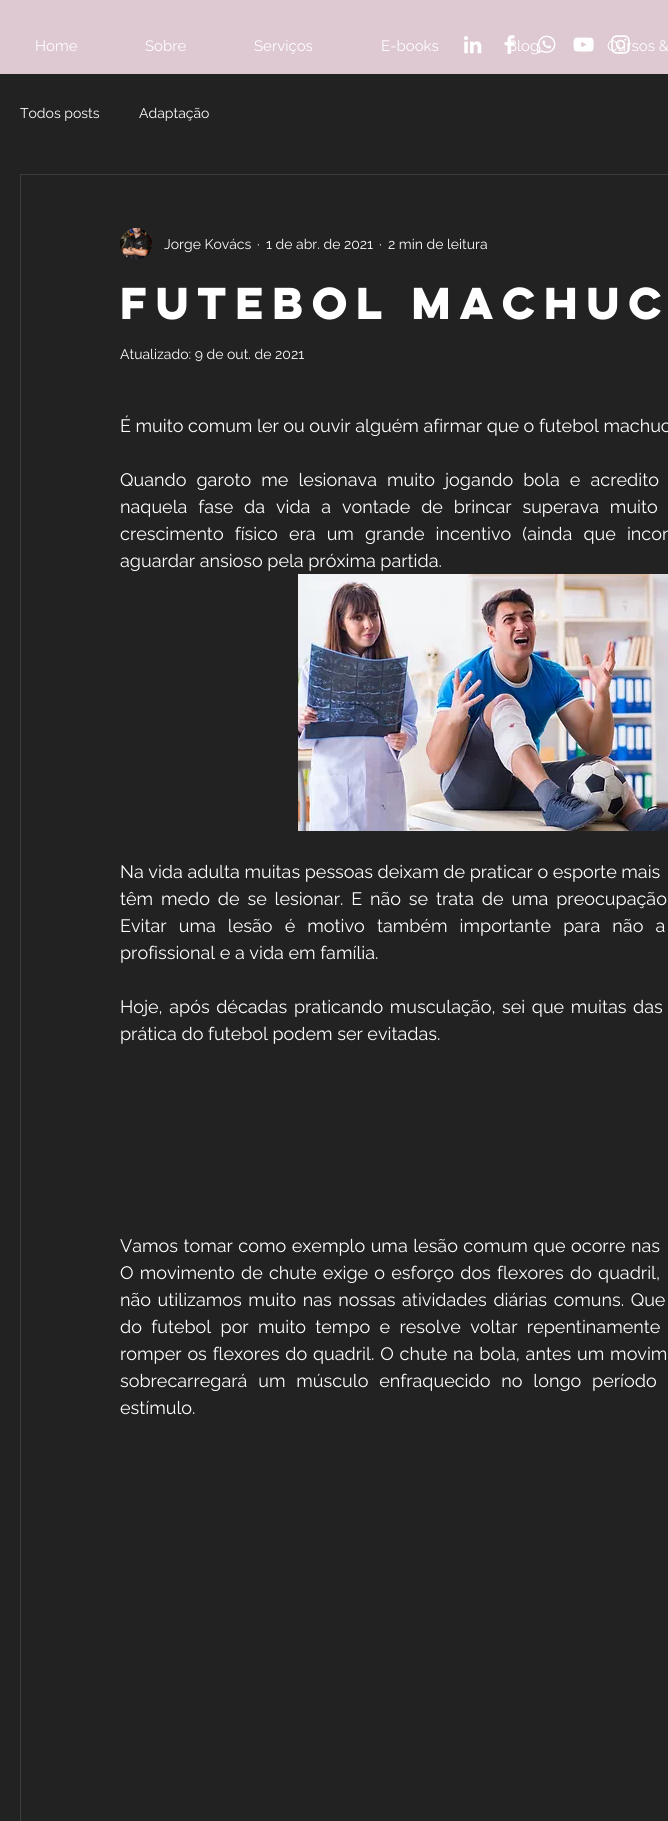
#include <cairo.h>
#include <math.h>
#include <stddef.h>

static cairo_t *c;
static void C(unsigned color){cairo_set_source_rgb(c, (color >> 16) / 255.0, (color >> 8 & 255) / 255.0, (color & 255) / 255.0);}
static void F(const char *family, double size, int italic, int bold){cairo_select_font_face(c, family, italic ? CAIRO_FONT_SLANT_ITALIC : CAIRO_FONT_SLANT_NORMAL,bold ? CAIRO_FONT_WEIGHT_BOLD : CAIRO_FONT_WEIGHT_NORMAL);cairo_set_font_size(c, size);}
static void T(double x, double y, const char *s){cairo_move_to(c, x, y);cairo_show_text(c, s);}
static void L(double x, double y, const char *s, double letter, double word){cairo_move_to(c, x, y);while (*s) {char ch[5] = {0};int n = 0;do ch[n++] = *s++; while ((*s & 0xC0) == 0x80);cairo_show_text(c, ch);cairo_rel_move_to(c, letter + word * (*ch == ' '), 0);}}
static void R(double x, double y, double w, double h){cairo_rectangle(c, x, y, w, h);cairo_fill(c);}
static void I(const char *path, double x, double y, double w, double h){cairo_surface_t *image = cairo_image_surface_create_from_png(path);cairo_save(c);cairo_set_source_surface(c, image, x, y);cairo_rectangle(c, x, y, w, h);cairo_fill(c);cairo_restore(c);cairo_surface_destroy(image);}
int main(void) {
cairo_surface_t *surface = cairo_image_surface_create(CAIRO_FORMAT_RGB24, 668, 1821);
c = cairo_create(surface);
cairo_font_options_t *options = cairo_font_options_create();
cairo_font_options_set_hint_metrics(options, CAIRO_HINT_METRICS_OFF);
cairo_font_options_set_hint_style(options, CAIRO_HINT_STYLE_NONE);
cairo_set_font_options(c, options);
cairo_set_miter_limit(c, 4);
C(0xdec8d1);
cairo_paint(c);
I("1.png",464,36,18,18);
F("Raleway",15,0,0);
C(0xffffff);
T(507,51,"Blog");
I("2.png",504,35,11,19);
I("3.png",537,35,19,19);
I("4.png",573,37,21,15);
T(607,51,"Cursos &");
I("5.png",611,35,19,19);
T(35,51,"Home");
T(145,51,"Sobre");
T(254,51,"Serviços");
T(381,51,"E-books");
C(0x222222);
R(0,74,668,1747);
F("Raleway",14,0,0);
C(0xffffff);
T(20,118,"Todos posts");
T(139,118,"Adaptação");
cairo_rectangle(c,20.5,174.5,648,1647);
C(0x3c3c3c);
cairo_set_line_width(c,1);
cairo_stroke(c);
I("6.png",120,228,32,32);
C(0xffffff);
T(164,249,"Jorge Kovács");
T(257,249,"·");
T(266,249,"1 de abr. de 2021");
T(379,249,"·");
T(388,249,"2 min de leitura");
F("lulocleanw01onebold",40,0,1);
T(120,319,"Futebol machuc");
F("Raleway",14,0,0);
T(120,359,"Atualizado: 9 de out. de 2021");
F("Raleway",18,0,0);
T(120,432,"É muito comum ler ou ouvir alguém afirmar que o futebol machuc");
L(120,486,"Quando garoto me lesionava muito jogando bola e acredito",0,5.5);
L(120,513,"naquela fase da vida a vontade de brincar superava muito",0,6.25);
L(120,540,"crescimento físico era um grande incentivo (ainda que incon",0,6.5);
T(120,567,"aguardar ansioso pela próxima partida.");
I("7.png",298,574,370,257);
T(120,878,"Na vida adulta muitas pessoas deixam de praticar o esporte mais");
L(120,905,"têm medo de se lesionar. E não se trata de uma preocupação",0,3.25);
L(120,932,"Evitar uma lesão é motivo também importante para não a",0,7.5);
T(120,959,"profissional e a vida em família.");
L(120,1013,"Hoje, após décadas praticando musculação, sei que muitas das",0,2);
T(120,1040,"prática do futebol podem ser evitadas.");
L(120,1252,"Vamos tomar como exemplo uma lesão comum que ocorre nas",0,.9);
L(120,1279,"O movimento de chute exige o esforço dos flexores do quadril,",0,1.6);
L(120,1306,"não utilizamos muito nas nossas atividades diárias comuns. Que",0,2);
L(120,1333,"do futebol por muito tempo e resolve voltar repentinamente",0,4.75);
L(120,1360,"romper os flexores do quadril. O chute na bola, antes um movim",0,1.25);
L(120,1387,"sobrecarregará um músculo enfraquecido no longo período",0,6.25);
T(120,1414,"estímulo.");
cairo_surface_write_to_png(surface, "o.png");
cairo_font_options_destroy(options);
cairo_destroy(c);
cairo_surface_destroy(surface);
return 0;
}
